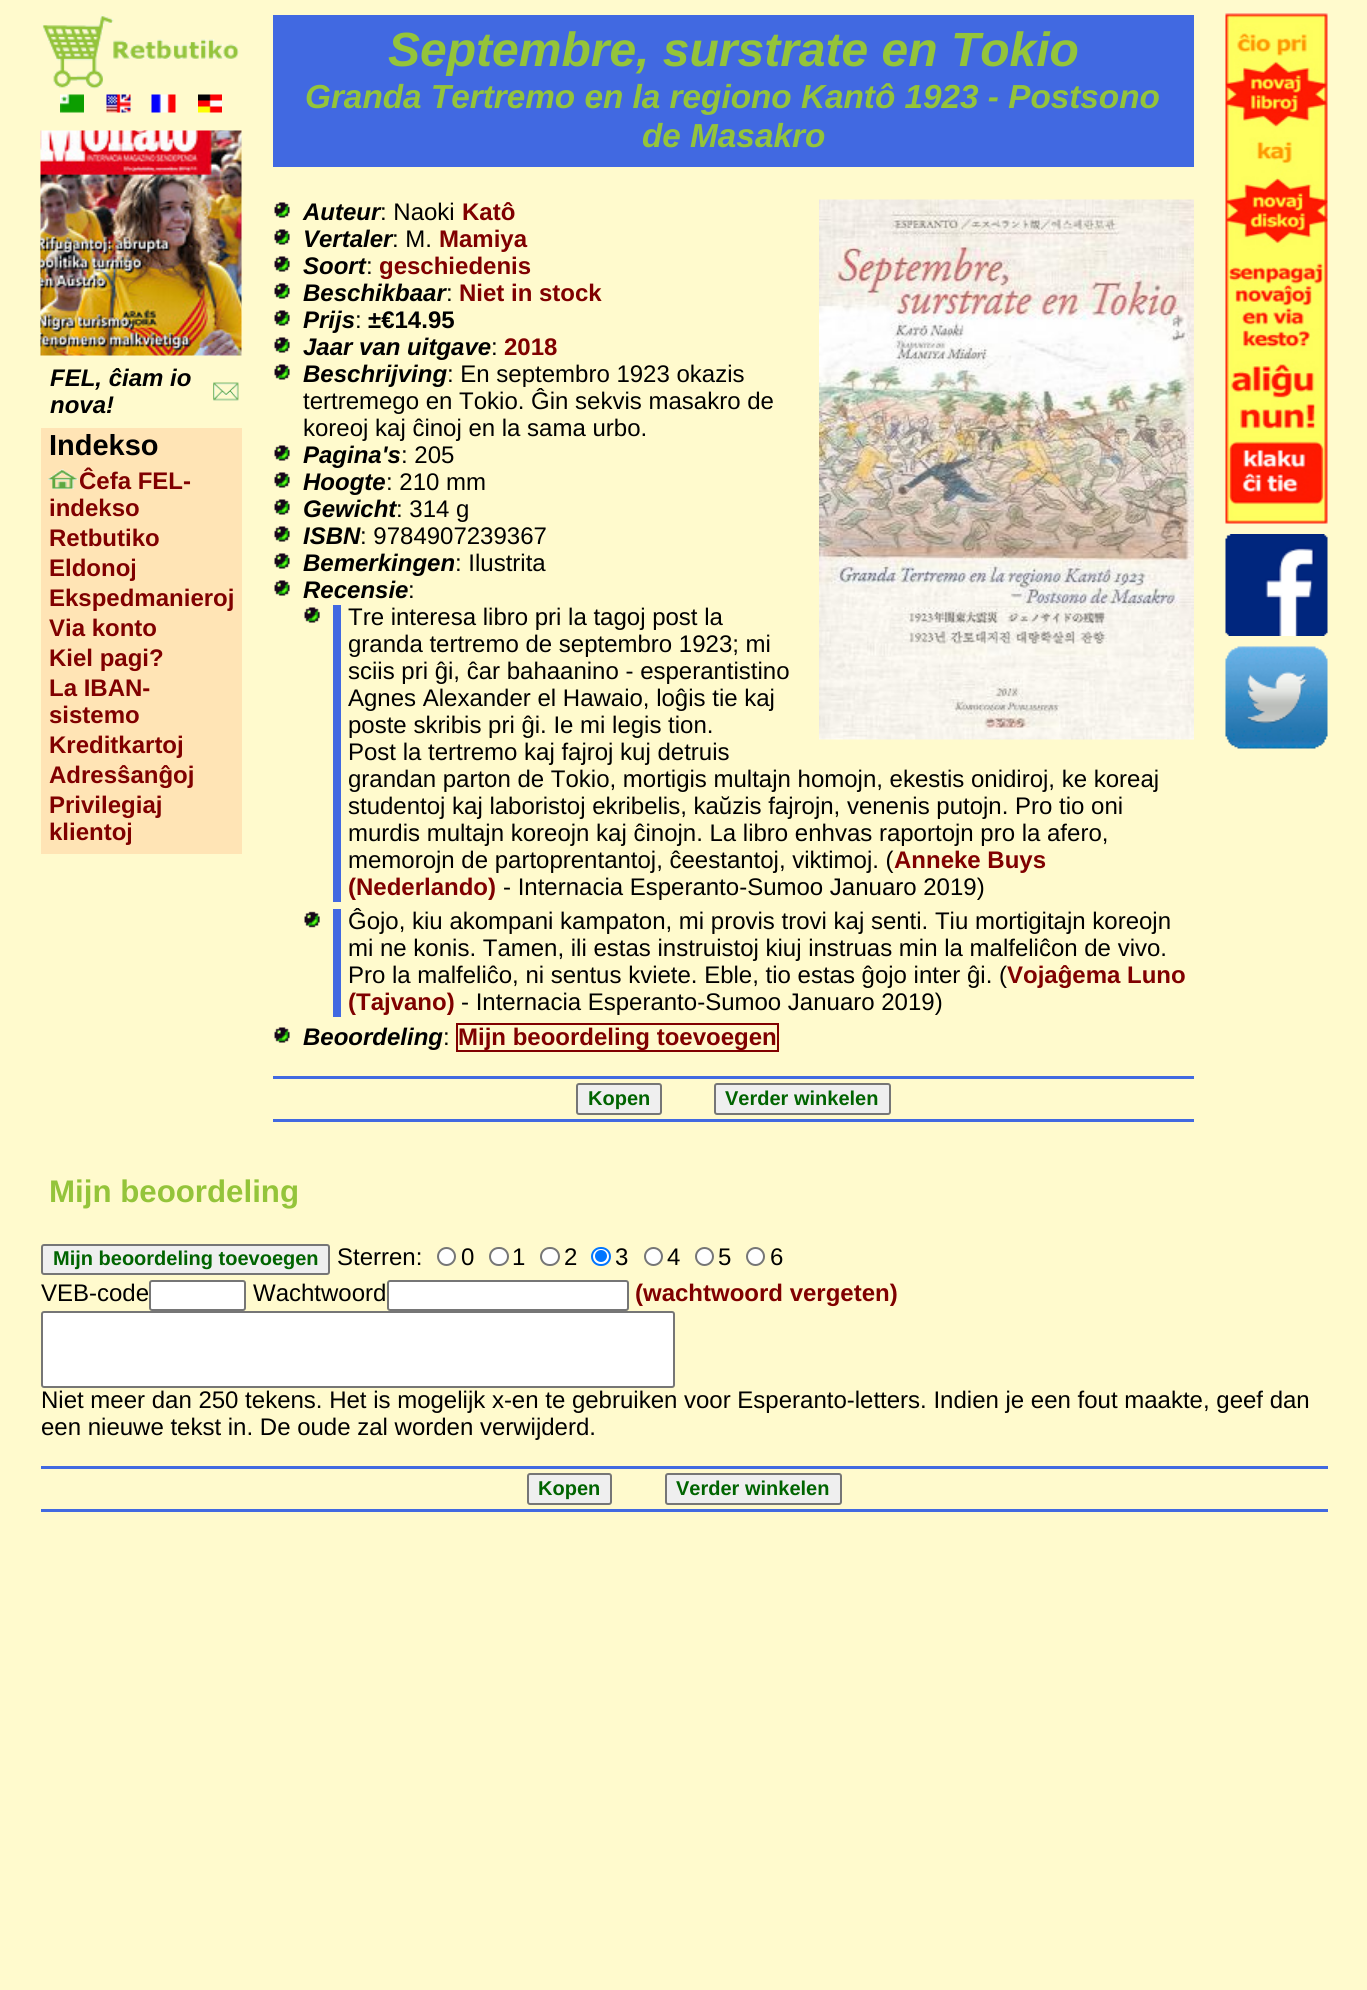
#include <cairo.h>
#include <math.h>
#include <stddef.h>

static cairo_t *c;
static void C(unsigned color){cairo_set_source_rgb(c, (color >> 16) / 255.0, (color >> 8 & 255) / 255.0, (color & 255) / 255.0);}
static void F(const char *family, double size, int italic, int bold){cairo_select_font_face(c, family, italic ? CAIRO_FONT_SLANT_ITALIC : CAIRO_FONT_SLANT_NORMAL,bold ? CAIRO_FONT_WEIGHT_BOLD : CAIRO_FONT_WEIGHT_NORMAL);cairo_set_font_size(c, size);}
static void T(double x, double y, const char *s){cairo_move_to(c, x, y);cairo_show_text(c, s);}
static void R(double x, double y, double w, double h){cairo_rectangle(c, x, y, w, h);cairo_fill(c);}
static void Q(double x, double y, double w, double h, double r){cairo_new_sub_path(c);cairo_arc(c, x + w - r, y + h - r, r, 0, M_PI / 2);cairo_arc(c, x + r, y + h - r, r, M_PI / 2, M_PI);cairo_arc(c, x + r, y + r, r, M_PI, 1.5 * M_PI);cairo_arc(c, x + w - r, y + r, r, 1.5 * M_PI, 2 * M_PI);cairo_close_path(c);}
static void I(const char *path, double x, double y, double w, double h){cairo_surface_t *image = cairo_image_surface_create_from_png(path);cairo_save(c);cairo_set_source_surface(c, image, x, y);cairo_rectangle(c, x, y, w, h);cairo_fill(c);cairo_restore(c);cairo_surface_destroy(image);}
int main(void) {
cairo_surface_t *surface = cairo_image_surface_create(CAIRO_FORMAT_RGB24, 1367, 1990);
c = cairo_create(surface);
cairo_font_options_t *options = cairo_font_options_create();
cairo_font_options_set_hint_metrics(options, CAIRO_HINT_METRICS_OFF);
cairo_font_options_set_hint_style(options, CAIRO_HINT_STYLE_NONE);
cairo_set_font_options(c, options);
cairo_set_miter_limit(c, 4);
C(0xfffacd);
cairo_paint(c);
I("1.png",42,15,197,74);
I("2.png",60,94,24,19);
I("3.png",106,94,25,19);
I("4.png",151,94,25,19);
I("5.png",198,94,24,19);
I("6.png",40,130,202,226);
F("Liberation Sans",24,1,1);
C(0x000000);
T(50,386,"FEL, ĉiam io");
T(50,413,"nova!");
I("7.png",213,382,26,19);
C(0xffe4b5);
R(41,428,201,426);
F("Liberation Sans",29,0,1);
C(0x000000);
T(49,455,"Indekso");
I("8.png",48,469,30,20);
F("Liberation Sans",24,0,1);
C(0x800000);
T(79,489,"Ĉefa FEL-");
T(49,516,"indekso");
T(49,546,"Retbutiko");
T(49,576,"Eldonoj");
T(49,606,"Ekspedmanieroj");
T(49,636,"Via konto");
T(49,666,"Kiel pagi?");
T(49,696,"La IBAN-");
T(49,723,"sistemo");
T(49,753,"Kreditkartoj");
T(49,783,"Adresŝanĝoj");
T(49,813,"Privilegiaj");
T(49,840,"klientoj");
C(0x4169e1);
R(273,15,921,152);
F("Liberation Sans",48,1,1);
C(0x94c43a);
T(388,66,"Septembre, surstrate en Tokio");
F("Liberation Sans",33.3,1,1);
T(305,108,"Granda Tertremo en la regiono Kantô 1923 - Postsono");
T(642,147,"de Masakro");
I("9.png",819,199,375,541);
I("10.png",274,202,16,16);
F("Liberation Sans",24,1,1);
C(0x000000);
T(303,220,"Auteur");
F("Liberation Sans",24,0,0);
T(380,220,": Naoki");
F("Liberation Sans",24,0,1);
C(0x800000);
T(462,220,"Katô");
I("10.png",274,229,16,16);
F("Liberation Sans",24,1,1);
C(0x000000);
T(303,247,"Vertaler");
F("Liberation Sans",24,0,0);
T(392,247,": M.");
F("Liberation Sans",24,0,1);
C(0x800000);
T(439,247,"Mamiya");
I("10.png",274,256,16,16);
F("Liberation Sans",24,1,1);
C(0x000000);
T(303,274,"Soort");
F("Liberation Sans",24,0,0);
T(366,274,":");
F("Liberation Sans",24,0,1);
C(0x800000);
T(379,274,"geschiedenis");
I("10.png",274,283,16,16);
F("Liberation Sans",24,1,1);
C(0x000000);
T(303,301,"Beschikbaar");
F("Liberation Sans",24,0,0);
T(446,301,":");
F("Liberation Sans",24,0,1);
C(0x800000);
T(459,301,"Niet in stock");
I("10.png",274,310,16,16);
F("Liberation Sans",24,1,1);
C(0x000000);
T(303,328,"Prijs");
F("Liberation Sans",24,0,0);
T(355,328,":");
F("Liberation Sans",24,0,1);
T(368,328,"±€14.95");
I("10.png",274,337,16,16);
F("Liberation Sans",24,1,1);
T(303,355,"Jaar van uitgave");
F("Liberation Sans",24,0,0);
T(491,355,":");
F("Liberation Sans",24,0,1);
C(0x800000);
T(504,355,"2018");
I("10.png",274,364,16,16);
F("Liberation Sans",24,1,1);
C(0x000000);
T(303,382,"Beschrijving");
F("Liberation Sans",24,0,0);
T(447,382,": En septembro 1923 okazis");
T(303,409,"tertremego en Tokio. Ĝin sekvis masakro de");
T(303,436,"koreoj kaj ĉinoj en la sama urbo.");
I("10.png",274,445,16,16);
F("Liberation Sans",24,1,1);
T(303,463,"Pagina's");
F("Liberation Sans",24,0,0);
T(401,463,": 205");
I("10.png",274,472,16,16);
F("Liberation Sans",24,1,1);
T(303,490,"Hoogte");
F("Liberation Sans",24,0,0);
T(386,490,": 210 mm");
I("10.png",274,499,16,16);
F("Liberation Sans",24,1,1);
T(303,517,"Gewicht");
F("Liberation Sans",24,0,0);
T(396,517,": 314 g");
I("10.png",274,526,16,16);
F("Liberation Sans",24,1,1);
T(303,544,"ISBN");
F("Liberation Sans",24,0,0);
T(360,544,": 9784907239367");
I("10.png",274,553,16,16);
F("Liberation Sans",24,1,1);
T(303,571,"Bemerkingen");
F("Liberation Sans",24,0,0);
T(455,571,": Ilustrita");
I("10.png",274,580,16,16);
F("Liberation Sans",24,1,1);
T(303,598,"Recensie");
F("Liberation Sans",24,0,0);
T(408,598,":");
C(0x4169e1);
R(333,605,8,297);
I("11.png",304,607,16,16);
C(0x000000);
T(348,625,"Tre interesa libro pri la tagoj post la");
T(348,652,"granda tertremo de septembro 1923; mi");
T(348,679,"sciis pri ĝi, ĉar bahaanino - esperantistino");
T(348,706,"Agnes Alexander el Hawaio, loĝis tie kaj");
T(348,733,"poste skribis pri ĝi. Ie mi legis tion.");
T(348,760,"Post la tertremo kaj fajroj kuj detruis");
T(348,787,"grandan parton de Tokio, mortigis multajn homojn, ekestis onidiroj, ke koreaj");
T(348,814,"studentoj kaj laboristoj ekribelis, kaŭzis fajrojn, venenis putojn. Pro tio oni");
T(348,841,"murdis multajn koreojn kaj ĉinojn. La libro enhvas raportojn pro la afero,");
T(348,868,"memorojn de partoprentantoj, ĉeestantoj, viktimoj. (");
F("Liberation Sans",24,0,1);
C(0x800000);
T(894,868,"Anneke Buys");
T(348,895,"(Nederlando)");
F("Liberation Sans",24,0,0);
C(0x000000);
T(503,895,"- Internacia Esperanto-Sumoo Januaro 2019)");
C(0x4169e1);
R(333,909,8,108);
I("12.png",304,911,16,17);
C(0x000000);
T(348,929,"Ĝojo, kiu akompani kampaton, mi provis trovi kaj senti. Tiu mortigitajn koreojn");
T(348,956,"mi ne konis. Tamen, ili estas instruistoj kiuj instruas min la malfeliĉon de vivo.");
T(348,983,"Pro la malfeliĉo, ni sentus kviete. Eble, tio estas ĝojo inter ĝi. (");
F("Liberation Sans",24,0,1);
C(0x800000);
T(1007,983,"Vojaĝema Luno");
T(348,1010,"(Tajvano)");
F("Liberation Sans",24,0,0);
C(0x000000);
T(461,1010,"- Internacia Esperanto-Sumoo Januaro 2019)");
I("10.png",274,1027,16,16);
F("Liberation Sans",24,1,1);
T(303,1045,"Beoordeling");
F("Liberation Sans",24,0,0);
T(443,1045,":");
cairo_rectangle(c,457,1024,321,27);
C(0x800000);
cairo_stroke(c);
F("Liberation Sans",24,0,1);
T(458,1045,"Mijn beoordeling toevoegen");
C(0x4169e1);
R(273,1076,921,3);
R(273,1119,921,3);
C(0xefefef);
Q(577,1084,84,30,2);
cairo_fill_preserve(c);
C(0x767676);
cairo_stroke(c);
F("Liberation Sans",20,0,1);
C(0x006400);
T(588,1105,"Kopen");
C(0xefefef);
Q(715,1084,175,30,2);
cairo_fill_preserve(c);
C(0x767676);
cairo_stroke(c);
C(0x006400);
T(725,1105,"Verder winkelen");
I("13.png",1225,13,103,511);
I("14.png",1225,534,103,102);
I("15.png",1225,646,103,103);
F("Liberation Sans",31.25,0,1);
C(0x94c43a);
T(49,1202,"Mijn beoordeling");
C(0xefefef);
Q(42,1245,287,29,2);
cairo_fill_preserve(c);
C(0x767676);
cairo_stroke(c);
F("Liberation Sans",20,0,1);
C(0x006400);
T(53,1265,"Mijn beoordeling toevoegen");
F("Liberation Sans",24,0,0);
C(0x000000);
T(337,1265,"Sterren:");
C(0xffffff);
cairo_new_path(c);
cairo_arc(c,446.5,1256.5,8.5,0,2 * M_PI);
cairo_fill_preserve(c);
C(0x767676);
cairo_stroke(c);
C(0x000000);
T(461,1265,"0");
C(0xffffff);
Q(490,1248,18,17,8.5);
cairo_fill_preserve(c);
C(0x767676);
cairo_stroke(c);
C(0x000000);
T(512,1265,"1");
C(0xffffff);
Q(541,1248,18,17,8.5);
cairo_fill_preserve(c);
C(0x767676);
cairo_stroke(c);
C(0x000000);
T(564,1265,"2");
C(0xffffff);
Q(592,1248,18,17,8.5);
cairo_fill_preserve(c);
C(0x0075ff);
cairo_stroke(c);
cairo_arc(c,601,1256,6,0,2 * M_PI);
cairo_fill(c);
C(0x000000);
T(615,1265,"3");
C(0xffffff);
cairo_new_path(c);
cairo_arc(c,653.5,1256.5,8.5,0,2 * M_PI);
cairo_fill_preserve(c);
C(0x767676);
cairo_stroke(c);
C(0x000000);
T(667,1265,"4");
C(0xffffff);
cairo_new_path(c);
cairo_arc(c,704.5,1256.5,8.5,0,2 * M_PI);
cairo_fill_preserve(c);
C(0x767676);
cairo_stroke(c);
C(0x000000);
T(718,1265,"5");
C(0xffffff);
cairo_new_path(c);
cairo_arc(c,755.5,1256.5,8.5,0,2 * M_PI);
cairo_fill_preserve(c);
C(0x767676);
cairo_stroke(c);
C(0x000000);
T(770,1265,"6");
T(41,1301,"VEB-code");
C(0xffffff);
Q(150,1281,95,29,2);
cairo_fill_preserve(c);
C(0x767676);
cairo_stroke(c);
C(0x000000);
T(253,1301,"Wachtwoord");
C(0xffffff);
Q(388,1281,240,29,2);
cairo_fill_preserve(c);
C(0x767676);
cairo_stroke(c);
F("Liberation Sans",24,0,1);
C(0x800000);
T(635,1301,"(wachtwoord vergeten)");
C(0xffffff);
Q(42,1312,632,75,2);
cairo_fill_preserve(c);
C(0x767676);
cairo_stroke(c);
F("Liberation Sans",24,0,0);
C(0x000000);
T(41,1408,"Niet meer dan 250 tekens. Het is mogelijk x-en te gebruiken voor Esperanto-letters. Indien je een fout maakte, geef dan");
T(41,1435,"een nieuwe tekst in. De oude zal worden verwijderd.");
C(0x4169e1);
R(41,1466,1287,3);
R(41,1509,1287,3);
C(0xefefef);
Q(528,1474,83,30,2);
cairo_fill_preserve(c);
C(0x767676);
cairo_stroke(c);
F("Liberation Sans",20,0,1);
C(0x006400);
T(538,1495,"Kopen");
C(0xefefef);
Q(666,1474,175,30,2);
cairo_fill_preserve(c);
C(0x767676);
cairo_stroke(c);
C(0x006400);
T(676,1495,"Verder winkelen");
cairo_surface_write_to_png(surface, "o.png");
cairo_font_options_destroy(options);
cairo_destroy(c);
cairo_surface_destroy(surface);
return 0;
}
